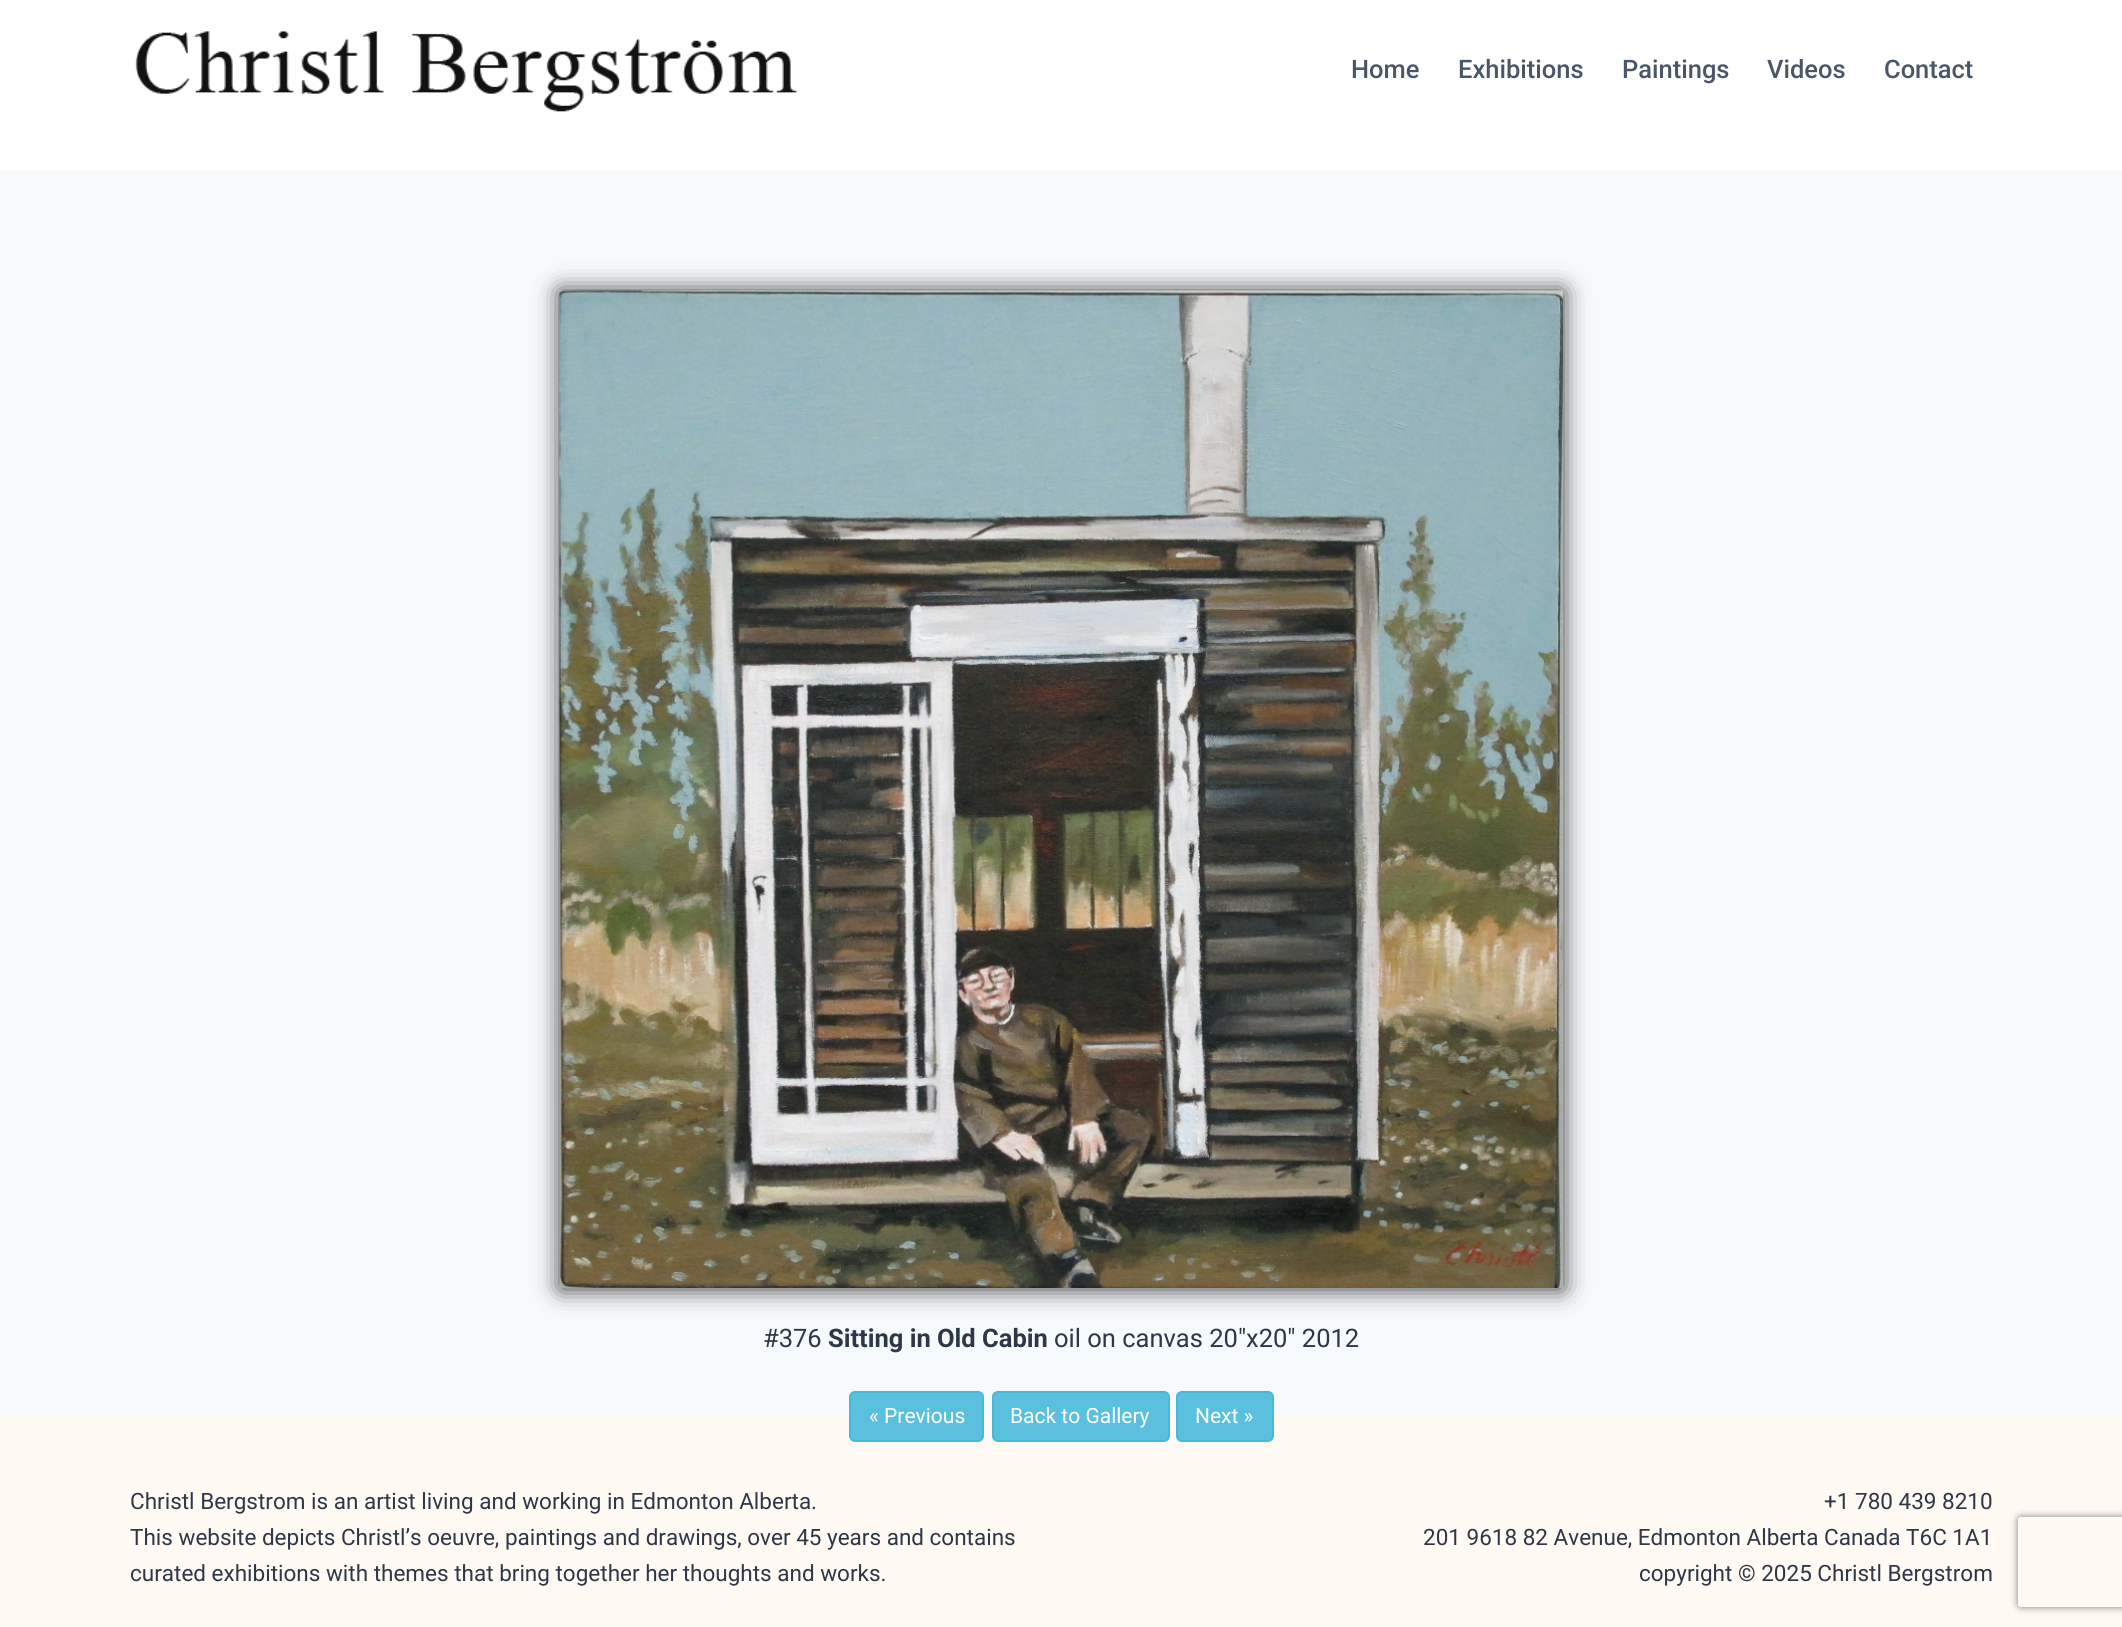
#include <cairo.h>
#include <math.h>
#include <stddef.h>

static cairo_t *c;
static void C(unsigned color){cairo_set_source_rgb(c, (color >> 16) / 255.0, (color >> 8 & 255) / 255.0, (color & 255) / 255.0);}
static void F(const char *family, double size, int italic, int bold){cairo_select_font_face(c, family, italic ? CAIRO_FONT_SLANT_ITALIC : CAIRO_FONT_SLANT_NORMAL,bold ? CAIRO_FONT_WEIGHT_BOLD : CAIRO_FONT_WEIGHT_NORMAL);cairo_set_font_size(c, size);}
static void T(double x, double y, const char *s){cairo_move_to(c, x, y);cairo_show_text(c, s);}
static void R(double x, double y, double w, double h){cairo_rectangle(c, x, y, w, h);cairo_fill(c);}
static void Q(double x, double y, double w, double h, double r){cairo_new_sub_path(c);cairo_arc(c, x + w - r, y + h - r, r, 0, M_PI / 2);cairo_arc(c, x + r, y + h - r, r, M_PI / 2, M_PI);cairo_arc(c, x + r, y + r, r, M_PI, 1.5 * M_PI);cairo_arc(c, x + w - r, y + r, r, 1.5 * M_PI, 2 * M_PI);cairo_close_path(c);}
static void S(double x, double y, double w, double h, double r, double blur, double alpha){cairo_push_group_with_content(c, CAIRO_CONTENT_ALPHA);cairo_set_operator(c, CAIRO_OPERATOR_SOURCE);for (int i = 15; i >= -15 && fmin(w, h) + blur * i / 3 > 0; i -= 2) {double e = blur * i / 6;cairo_set_source_rgba(c, 0, 0, 0, alpha * erfc((i - 1) / 8.5) / 2);Q(x - e, y - e, w + 2 * e, h + 2 * e, fmax(0, fmin(r + e + blur * .6, fmin(w, h) / 2 + e)));cairo_fill(c);}cairo_pattern_t *soft = cairo_pop_group(c);cairo_mask(c, soft);cairo_pattern_destroy(soft);}
static void I(const char *path, double x, double y, double w, double h){cairo_surface_t *image = cairo_image_surface_create_from_png(path);cairo_save(c);cairo_set_source_surface(c, image, x, y);cairo_rectangle(c, x, y, w, h);cairo_fill(c);cairo_restore(c);cairo_surface_destroy(image);}
int main(void) {
cairo_surface_t *surface = cairo_image_surface_create(CAIRO_FORMAT_RGB24, 2122, 1627);
c = cairo_create(surface);
cairo_font_options_t *options = cairo_font_options_create();
cairo_font_options_set_hint_metrics(options, CAIRO_HINT_METRICS_OFF);
cairo_font_options_set_hint_style(options, CAIRO_HINT_STYLE_NONE);
cairo_set_font_options(c, options);
cairo_set_miter_limit(c, 4);
C(0xf7fafc);
cairo_paint(c);
C(0xffffff);
R(0,0,2122,171);
I("1.png",135,31,663,81);
F("Roboto Medium",25.5,0,0);
C(0x4a5568);
T(1351,78,"Home");
T(1458,78,"Exhibitions");
T(1622,78,"Paintings");
T(1767,78,"Videos");
T(1884,78,"Contact");
C(0x333333);
S(560,291,1003,998,0,12,1);
I("2.png",559,290,1004,998);
F("Roboto",25.5,0,0);
C(0x2d3748);
T(763,1347,"#376");
F("Roboto",25.5,0,1);
T(828,1347,"Sitting in Old Cabin");
F("Roboto",25.5,0,0);
T(1054,1347,"oil on canvas 20\"x20\" 2012");
C(0xfffbf4);
R(0,1416,2122,211);
C(0x5bc0de);
Q(850,1392,133,49,5);
cairo_fill_preserve(c);
C(0x46b8da);
cairo_stroke(c);
F("Roboto",21,0,0);
C(0xffffff);
T(869,1423,"« Previous");
C(0x5bc0de);
Q(993,1392,176,49,5);
cairo_fill_preserve(c);
C(0x46b8da);
cairo_stroke(c);
C(0xffffff);
T(1010,1423,"Back to Gallery");
C(0x5bc0de);
Q(1177,1392,96,49,5);
cairo_fill_preserve(c);
C(0x46b8da);
cairo_stroke(c);
C(0xffffff);
T(1195,1423,"Next »");
F("Roboto",22.5,0,0);
C(0x2d3748);
T(130,1509,"Christl Bergstrom is an artist living and working in Edmonton Alberta.");
T(130,1545,"This website depicts Christl’s oeuvre, paintings and drawings, over 45 years and contains");
T(130,1581,"curated exhibitions with themes that bring together her thoughts and works.");
T(1824,1509,"+1 780 439 8210");
T(1423,1545,"201 9618 82 Avenue, Edmonton Alberta Canada T6C 1A1");
T(1639,1581,"copyright © 2025 Christl Bergstrom");
cairo_save(c);
cairo_set_fill_rule(c,CAIRO_FILL_RULE_EVEN_ODD);
cairo_new_path(c);
cairo_move_to(c,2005,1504);
cairo_line_to(c,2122,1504);
cairo_line_to(c,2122,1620);
cairo_line_to(c,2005,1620);
cairo_close_path(c);
cairo_move_to(c,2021,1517);
cairo_line_to(c,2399,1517);
cairo_curve_to(c,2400.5,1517,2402,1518.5,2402,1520);
cairo_line_to(c,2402,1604);
cairo_curve_to(c,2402,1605.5,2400.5,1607,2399,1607);
cairo_line_to(c,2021,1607);
cairo_curve_to(c,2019.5,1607,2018,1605.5,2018,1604);
cairo_line_to(c,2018,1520);
cairo_curve_to(c,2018,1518.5,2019.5,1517,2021,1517);
cairo_close_path(c);
cairo_clip(c);
C(0x808080);
S(2018,1517,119,90,3,4,1);
cairo_restore(c);
cairo_surface_write_to_png(surface, "o.png");
cairo_font_options_destroy(options);
cairo_destroy(c);
cairo_surface_destroy(surface);
return 0;
}
